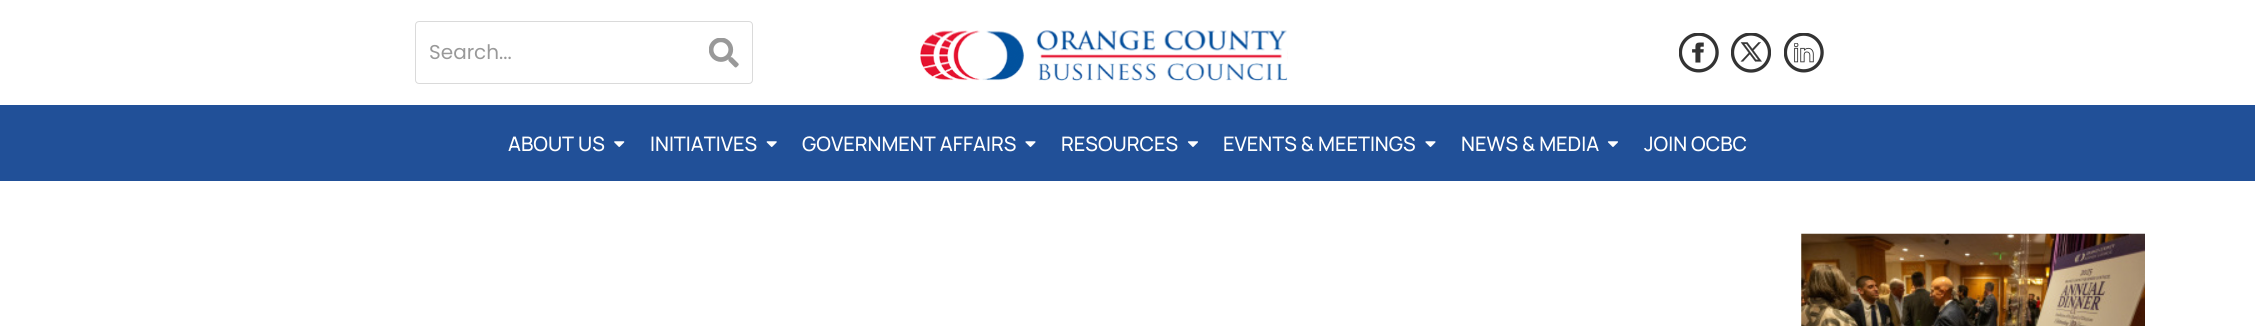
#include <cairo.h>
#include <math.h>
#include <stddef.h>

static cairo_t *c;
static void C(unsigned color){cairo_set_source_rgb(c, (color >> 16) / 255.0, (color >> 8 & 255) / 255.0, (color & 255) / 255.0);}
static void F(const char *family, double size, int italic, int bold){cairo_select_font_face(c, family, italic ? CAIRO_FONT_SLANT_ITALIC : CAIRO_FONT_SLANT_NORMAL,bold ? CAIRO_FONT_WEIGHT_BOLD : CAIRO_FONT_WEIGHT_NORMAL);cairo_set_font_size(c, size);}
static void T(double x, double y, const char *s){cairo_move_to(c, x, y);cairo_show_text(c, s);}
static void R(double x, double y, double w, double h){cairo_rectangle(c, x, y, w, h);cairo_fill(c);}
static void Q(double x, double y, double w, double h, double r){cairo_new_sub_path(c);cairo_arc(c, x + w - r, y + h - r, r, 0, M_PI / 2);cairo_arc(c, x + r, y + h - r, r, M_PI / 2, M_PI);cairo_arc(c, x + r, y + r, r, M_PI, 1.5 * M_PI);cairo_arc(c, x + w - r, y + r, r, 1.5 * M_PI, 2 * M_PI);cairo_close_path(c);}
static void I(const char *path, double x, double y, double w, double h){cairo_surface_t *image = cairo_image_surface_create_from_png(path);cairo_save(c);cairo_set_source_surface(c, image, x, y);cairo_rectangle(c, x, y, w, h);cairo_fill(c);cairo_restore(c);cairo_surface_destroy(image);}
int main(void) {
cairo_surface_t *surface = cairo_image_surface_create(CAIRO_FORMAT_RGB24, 2255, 326);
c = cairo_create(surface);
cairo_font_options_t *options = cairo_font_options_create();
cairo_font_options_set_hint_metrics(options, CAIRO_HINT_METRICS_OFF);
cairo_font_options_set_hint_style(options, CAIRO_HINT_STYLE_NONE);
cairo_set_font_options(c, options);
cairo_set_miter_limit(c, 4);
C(0xffffff);
cairo_paint(c);
Q(415.5,21.5,337,62,3.5);
C(0xdadada);
cairo_set_line_width(c,1);
cairo_stroke(c);
F("Poppins",20,0,0);
C(0x999999);
T(429,59,"Search...");
I("1.png",709,38,30,30);
I("2.png",920,30,368,51);
I("3.png",1679,33,40,40);
I("4.png",1731,33,40,40);
I("5.png",1784,33,40,40);
C(0x215098);
R(0,105,2255,76);
F("Manrope Medium",20,0,0);
C(0xffffff);
T(508,151,"ABOUT US");
I("6.png",614,141,11,6);
T(650,151,"INITIATIVES");
I("7.png",766,141,11,6);
T(802,151,"GOVERNMENT AFFAIRS");
I("8.png",1025,141,11,6);
T(1061,151,"RESOURCES");
I("9.png",1187,141,11,6);
T(1223,151,"EVENTS & MEETINGS");
I("8.png",1425,141,11,6);
T(1461,151,"NEWS & MEDIA");
I("9.png",1607,141,11,6);
T(1644,151,"JOIN OCBC");
I("10.png",1801,233,344,93);
cairo_surface_write_to_png(surface, "o.png");
cairo_font_options_destroy(options);
cairo_destroy(c);
cairo_surface_destroy(surface);
return 0;
}
